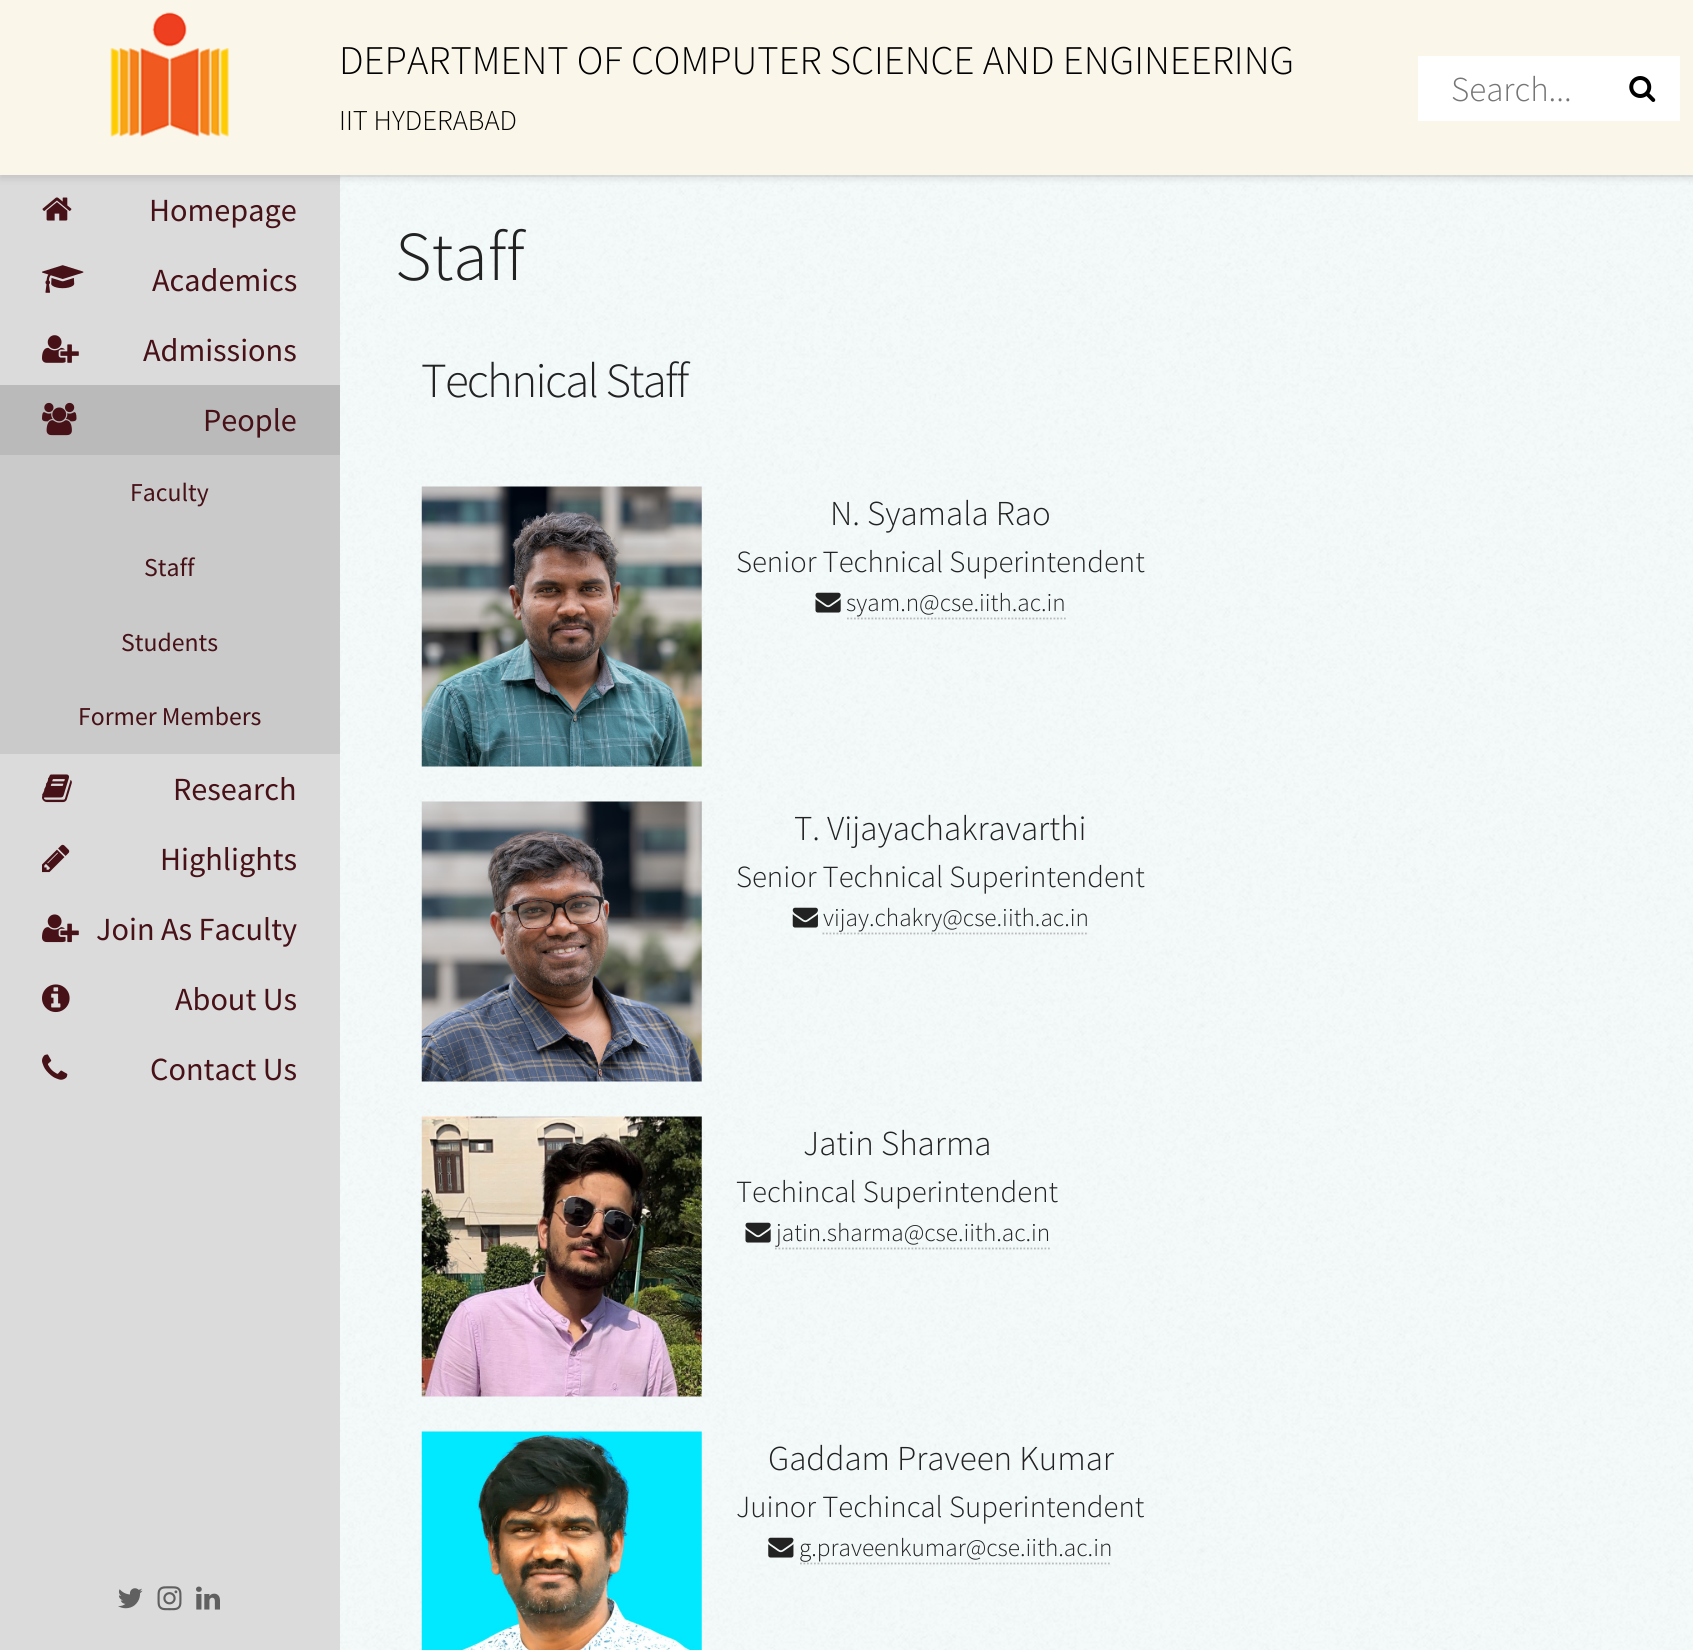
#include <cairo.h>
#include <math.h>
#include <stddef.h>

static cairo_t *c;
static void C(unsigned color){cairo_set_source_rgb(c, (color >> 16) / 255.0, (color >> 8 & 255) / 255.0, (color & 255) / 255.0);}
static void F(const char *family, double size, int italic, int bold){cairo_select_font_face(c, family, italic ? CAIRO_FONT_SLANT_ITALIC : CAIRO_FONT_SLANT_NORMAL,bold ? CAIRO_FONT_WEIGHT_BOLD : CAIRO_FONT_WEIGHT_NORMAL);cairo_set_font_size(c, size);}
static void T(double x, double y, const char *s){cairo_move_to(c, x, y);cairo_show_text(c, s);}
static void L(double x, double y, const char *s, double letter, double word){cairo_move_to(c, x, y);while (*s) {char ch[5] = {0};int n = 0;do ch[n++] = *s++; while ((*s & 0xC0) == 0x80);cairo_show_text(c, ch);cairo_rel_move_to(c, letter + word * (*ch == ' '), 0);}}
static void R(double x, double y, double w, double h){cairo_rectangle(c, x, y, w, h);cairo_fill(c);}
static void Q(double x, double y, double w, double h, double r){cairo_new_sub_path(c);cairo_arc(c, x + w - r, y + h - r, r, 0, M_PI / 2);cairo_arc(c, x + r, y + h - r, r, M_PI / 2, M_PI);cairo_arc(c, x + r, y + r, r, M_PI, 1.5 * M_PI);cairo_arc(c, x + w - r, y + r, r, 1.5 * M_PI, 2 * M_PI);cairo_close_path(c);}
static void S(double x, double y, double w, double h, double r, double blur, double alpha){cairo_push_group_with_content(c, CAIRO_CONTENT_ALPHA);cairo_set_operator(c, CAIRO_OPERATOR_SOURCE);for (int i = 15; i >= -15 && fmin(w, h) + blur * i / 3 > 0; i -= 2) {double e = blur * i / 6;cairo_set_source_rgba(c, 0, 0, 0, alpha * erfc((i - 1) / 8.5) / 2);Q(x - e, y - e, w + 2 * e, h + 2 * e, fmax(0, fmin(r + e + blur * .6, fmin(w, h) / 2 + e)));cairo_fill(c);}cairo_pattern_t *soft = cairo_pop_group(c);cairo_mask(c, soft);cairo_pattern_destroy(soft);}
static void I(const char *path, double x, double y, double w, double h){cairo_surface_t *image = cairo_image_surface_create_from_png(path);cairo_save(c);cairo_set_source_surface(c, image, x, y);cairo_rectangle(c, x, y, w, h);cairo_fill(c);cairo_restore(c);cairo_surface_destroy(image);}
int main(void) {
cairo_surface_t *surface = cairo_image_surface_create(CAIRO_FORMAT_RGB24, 1693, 1650);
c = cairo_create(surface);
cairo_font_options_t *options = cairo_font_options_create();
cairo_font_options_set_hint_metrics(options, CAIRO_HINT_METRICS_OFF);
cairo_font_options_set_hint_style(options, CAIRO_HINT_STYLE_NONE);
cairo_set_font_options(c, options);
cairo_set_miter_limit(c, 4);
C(0xf5fafa);
cairo_paint(c);
C(0xdbdbdb);
R(0,175,340,1475);
I("15.png",340,175,1353,1475);
cairo_set_source_rgba(c,0,0,0,0.05);
R(340,175,1353,2);
C(0x000000);
S(0,4,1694,175,0,3.5,.1);
C(0xfaf6e9);
R(0,0,1693,175);
I("1.png",110,12,119,125);
F("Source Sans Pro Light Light",40.7,0,0);
C(0x000000);
T(339,74,"DEPARTMENT OF COMPUTER SCIENCE AND ENGINEERING");
F("Source Sans Pro Light Light",28.75,0,0);
T(339,130,"IIT HYDERABAD");
C(0xffffff);
R(1418,56,262,65);
F("Source Sans Pro Light Light",35,0,0);
C(0x757575);
T(1451,101,"Search...");
I("2.png",1629,76,27,26);
I("3.png",42,197,30,24);
F("Source Sans Pro",32.25,0,0);
C(0x471118);
T(149,221,"Homepage");
I("4.png",42,265,42,28);
T(152,291,"Academics");
I("5.png",42,335,37,28);
T(143,361,"Admissions");
C(0xbababa);
R(0,385,340,70);
I("6.png",42,402,35,34);
C(0x471118);
T(203,431,"People");
C(0xcacaca);
R(0,455,340,299);
F("Source Sans Pro",25.75,0,0);
C(0x471118);
T(130,501,"Faculty");
T(144,576,"Staff");
T(121,651,"Students");
T(78,725,"Former Members");
I("7.png",42,774,30,29);
F("Source Sans Pro",32.25,0,0);
T(173,800,"Research");
I("8.png",42,844,28,29);
T(160,870,"Highlights");
I("9.png",42,914,37,29);
T(96,940,"Join As Faculty");
I("10.png",42,984,28,29);
T(175,1010,"About Us");
I("11.png",42,1054,26,26);
T(150,1080,"Contact Us");
I("12.png",118,1588,25,21);
I("13.png",157,1586,25,25);
I("14.png",196,1586,24,24);
F("Source Sans Pro Light Light",70,0,0);
C(0x222222);
T(395,280,"Staff");
F("Source Sans Pro Light Light",49,0,0);
L(421,397,"Technical Staff",-1.75,0);
I("16.png",421,486,281,281);
F("Source Sans Pro Light Light",35,0,0);
T(830,525,"N. Syamala Rao");
F("Source Sans Pro Light Light",30.75,0,0);
T(736,572,"Senior Technical Superintendent");
I("17.png",815,592,26,21);
F("Source Sans Pro Light Light",25.25,0,0);
T(846,611,"syam.n@cse.iith.ac.in");
cairo_new_path(c);
cairo_move_to(c,847,618.5);
cairo_line_to(c,1066,618.5);
cairo_set_source_rgba(c,0.502,0.502,0.502,0.5);
cairo_set_line_width(c,1.8);
cairo_set_dash(c,(double[]){1.75,1.75},2,0);
cairo_stroke(c);
I("18.png",421,801,281,281);
F("Source Sans Pro Light Light",35,0,0);
C(0x222222);
T(794,840,"T. Vijayachakravarthi");
F("Source Sans Pro Light Light",30.75,0,0);
T(736,887,"Senior Technical Superintendent");
I("19.png",792,907,26,21);
F("Source Sans Pro Light Light",25.25,0,0);
T(823,926,"vijay.chakry@cse.iith.ac.in");
cairo_new_path(c);
cairo_move_to(c,822.5,933.5);
cairo_line_to(c,1088.5,933.5);
cairo_set_source_rgba(c,0.502,0.502,0.502,0.5);
cairo_stroke(c);
I("20.png",421,1116,281,281);
F("Source Sans Pro Light Light",35,0,0);
C(0x222222);
T(803,1155,"Jatin Sharma");
F("Source Sans Pro Light Light",30.75,0,0);
T(736,1202,"Techincal Superintendent");
I("21.png",745,1222,26,21);
F("Source Sans Pro Light Light",25.25,0,0);
T(776,1241,"jatin.sharma@cse.iith.ac.in");
cairo_new_path(c);
cairo_move_to(c,775,1248.5);
cairo_line_to(c,1050,1248.5);
cairo_set_source_rgba(c,0.502,0.502,0.502,0.5);
cairo_stroke(c);
I("22.png",421,1431,281,219);
F("Source Sans Pro Light Light",35,0,0);
C(0x222222);
T(768,1470,"Gaddam Praveen Kumar");
F("Source Sans Pro Light Light",30.75,0,0);
T(736,1517,"Juinor Techincal Superintendent");
I("23.png",768,1537,26,21);
F("Source Sans Pro Light Light",25.25,0,0);
T(799,1556,"g.praveenkumar@cse.iith.ac.in");
cairo_new_path(c);
cairo_move_to(c,800,1563.5);
cairo_line_to(c,1111,1563.5);
cairo_set_source_rgba(c,0.502,0.502,0.502,0.5);
cairo_stroke(c);
cairo_surface_write_to_png(surface, "o.png");
cairo_font_options_destroy(options);
cairo_destroy(c);
cairo_surface_destroy(surface);
return 0;
}
